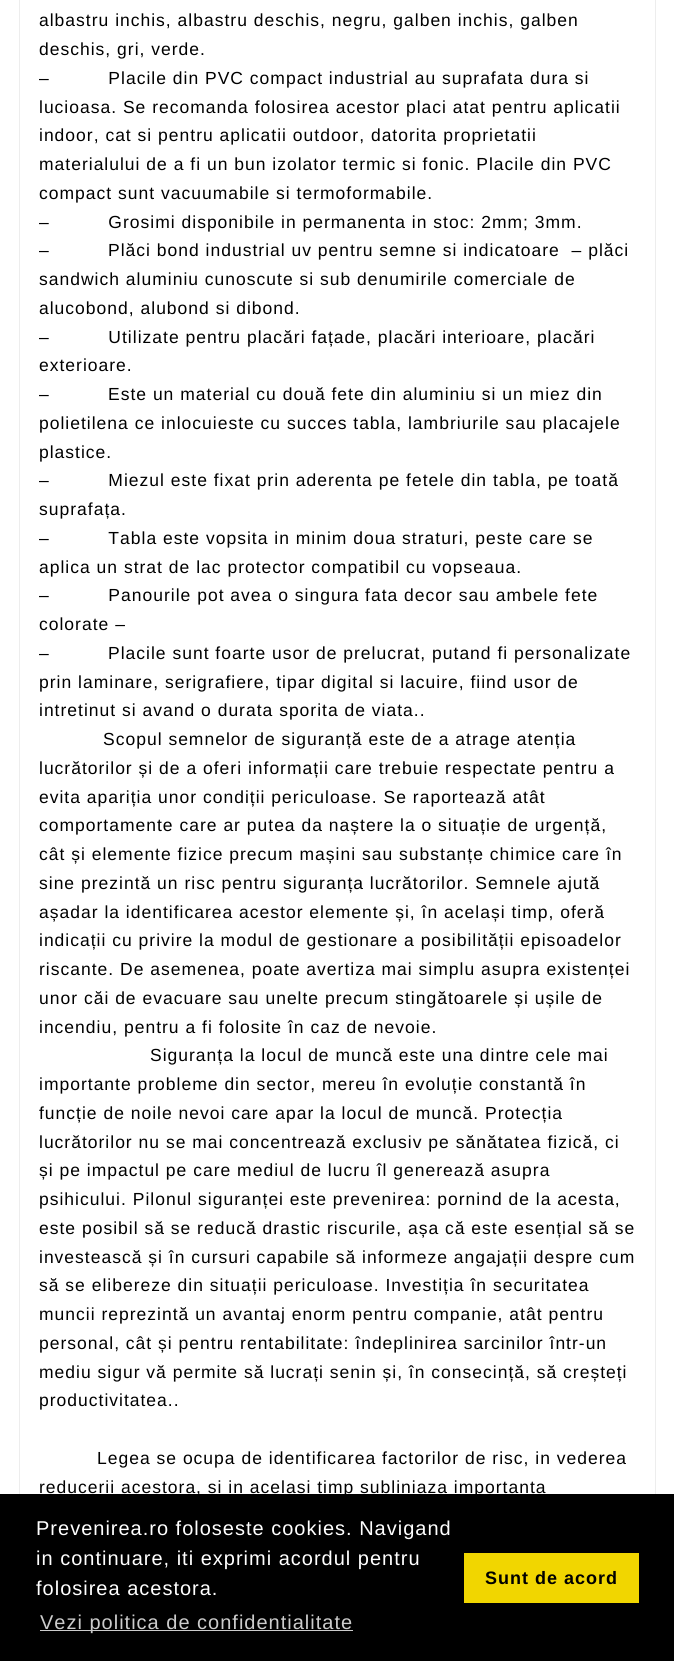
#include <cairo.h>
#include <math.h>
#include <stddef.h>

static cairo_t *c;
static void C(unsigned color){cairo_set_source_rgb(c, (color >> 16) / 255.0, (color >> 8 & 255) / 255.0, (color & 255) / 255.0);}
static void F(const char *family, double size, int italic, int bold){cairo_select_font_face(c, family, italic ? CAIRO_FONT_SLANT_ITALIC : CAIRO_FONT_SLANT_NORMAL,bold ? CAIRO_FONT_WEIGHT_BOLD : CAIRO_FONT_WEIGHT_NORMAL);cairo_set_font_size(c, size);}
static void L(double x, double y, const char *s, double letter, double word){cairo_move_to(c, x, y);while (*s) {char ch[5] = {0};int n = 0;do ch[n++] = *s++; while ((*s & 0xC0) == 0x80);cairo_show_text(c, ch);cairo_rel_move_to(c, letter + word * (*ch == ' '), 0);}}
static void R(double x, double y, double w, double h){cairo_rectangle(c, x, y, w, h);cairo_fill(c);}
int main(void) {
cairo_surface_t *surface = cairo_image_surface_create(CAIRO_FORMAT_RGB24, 674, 1661);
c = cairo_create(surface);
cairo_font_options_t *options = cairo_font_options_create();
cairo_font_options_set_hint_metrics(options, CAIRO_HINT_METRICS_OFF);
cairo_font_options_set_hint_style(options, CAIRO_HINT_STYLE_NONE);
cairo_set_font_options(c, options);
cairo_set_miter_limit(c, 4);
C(0xffffff);
cairo_paint(c);
cairo_rectangle(c,19.5,-.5,636,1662);
C(0xededed);
cairo_set_line_width(c,1);
cairo_stroke(c);
F("Liberation Sans",17.5,0,0);
C(0x000000);
L(39,26,"albastru inchis, albastru deschis, negru, galben inchis, galben",1,0);
L(39,55,"deschis, gri, verde.",1,0);
L(39,84,"–          Placile din PVC compact industrial au suprafata dura si",1,0);
L(39,113,"lucioasa. Se recomanda folosirea acestor placi atat pentru aplicatii",1,0);
L(39,141,"indoor, cat si pentru aplicatii outdoor, datorita proprietatii",1,0);
L(39,170,"materialului de a fi un bun izolator termic si fonic. Placile din PVC",1,0);
L(39,199,"compact sunt vacuumabile si termoformabile.",1,0);
L(39,228,"–          Grosimi disponibile in permanenta in stoc: 2mm; 3mm.",1,0);
L(39,256,"–",1,0);
L(108,256,"Plăci bond industrial uv pentru semne si indicatoare  – plăci",1,0);
L(39,285,"sandwich aluminiu cunoscute si sub denumirile comerciale de",1,0);
L(39,314,"alucobond, alubond si dibond.",1,0);
L(39,343,"–          Utilizate pentru placări fațade, placări interioare, placări",1,0);
L(39,371,"exterioare.",1,0);
L(39,400,"–",1,0);
L(108,400,"Este un material cu două fete din aluminiu si un miez din",1,0);
L(39,429,"polietilena ce inlocuieste cu succes tabla, lambriurile sau placajele",1,0);
L(39,458,"plastice.",1,0);
L(39,486,"–          Miezul este fixat prin aderenta pe fetele din tabla, pe toată",1,0);
L(39,515,"suprafața.",1,0);
L(39,544,"–          Tabla este vopsita in minim doua straturi, peste care se",1,0);
L(39,573,"aplica un strat de lac protector compatibil cu vopseaua.",1,0);
L(39,601,"–          Panourile pot avea o singura fata decor sau ambele fete",1,0);
L(39,630,"colorate –",1,0);
L(39,659,"–",1,0);
L(108,659,"Placile sunt foarte usor de prelucrat, putand fi personalizate",1,0);
L(39,688,"prin laminare, serigrafiere, tipar digital si lacuire, fiind usor de",1,0);
L(39,716,"intretinut si avand o durata sporita de viata..",1,0);
L(103,745,"Scopul semnelor de siguranță este de a atrage atenția",1,0);
L(39,774,"lucrătorilor și de a oferi informații care trebuie respectate pentru a",1,0);
L(39,803,"evita apariția unor condiții periculoase. Se raportează atât",1,0);
L(39,831,"comportamente care ar putea da naștere la o situație de urgență,",1,0);
L(39,860,"cât și elemente fizice precum mașini sau substanțe chimice care în",1,0);
L(39,889,"sine prezintă un risc pentru siguranța lucrătorilor. Semnele ajută",1,0);
L(39,918,"așadar la identificarea acestor elemente și, în același timp, oferă",1,0);
L(39,946,"indicații cu privire la modul de gestionare a posibilității episoadelor",1,0);
L(39,975,"riscante. De asemenea, poate avertiza mai simplu asupra existenței",1,0);
L(39,1004,"unor căi de evacuare sau unelte precum stingătoarele și ușile de",1,0);
L(39,1033,"incendiu, pentru a fi folosite în caz de nevoie.",1,0);
L(150,1061,"Siguranța la locul de muncă este una dintre cele mai",1,0);
L(39,1090,"importante probleme din sector, mereu în evoluție constantă în",1,0);
L(39,1119,"funcție de noile nevoi care apar la locul de muncă. Protecția",1,0);
L(39,1148,"lucrătorilor nu se mai concentrează exclusiv pe sănătatea fizică, ci",1,0);
L(39,1176,"și pe impactul pe care mediul de lucru îl generează asupra",1,0);
L(39,1205,"psihicului. Pilonul siguranței este prevenirea: pornind de la acesta,",1,0);
L(39,1234,"este posibil să se reducă drastic riscurile, așa că este esențial să se",1,0);
L(39,1263,"investească și în cursuri capabile să informeze angajații despre cum",1,0);
L(39,1291,"să se elibereze din situații periculoase. Investiția în securitatea",1,0);
L(39,1320,"muncii reprezintă un avantaj enorm pentru companie, atât pentru",1,0);
L(39,1349,"personal, cât și pentru rentabilitate: îndeplinirea sarcinilor într-un",1,0);
L(39,1378,"mediu sigur vă permite să lucrați senin și, în consecință, să creșteți",1,0);
L(39,1406,"productivitatea..",1,0);
L(97,1464,"Legea se ocupa de identificarea factorilor de risc, in vederea",1,0);
L(39,1493,"reducerii acestora, si in acelasi timp subliniaza importanta",1,0);
R(0,1494,674,167);
F("Liberation Sans",20,0,0);
C(0xffffff);
L(36,1535,"Prevenirea.ro foloseste cookies. Navigand",1,0);
L(36,1565,"in continuare, iti exprimi acordul pentru",1,0);
L(36,1595,"folosirea acestora.",1,0);
C(0xcccccc);
R(40,1630,313,1);
L(40,1629,"Vezi politica de confidentialitate",1,0);
C(0xf1d600);
R(464,1553,175,50);
F("Liberation Sans",18,0,1);
C(0x000000);
L(485,1584,"Sunt de acord",1,0);
cairo_surface_write_to_png(surface, "o.png");
cairo_font_options_destroy(options);
cairo_destroy(c);
cairo_surface_destroy(surface);
return 0;
}
